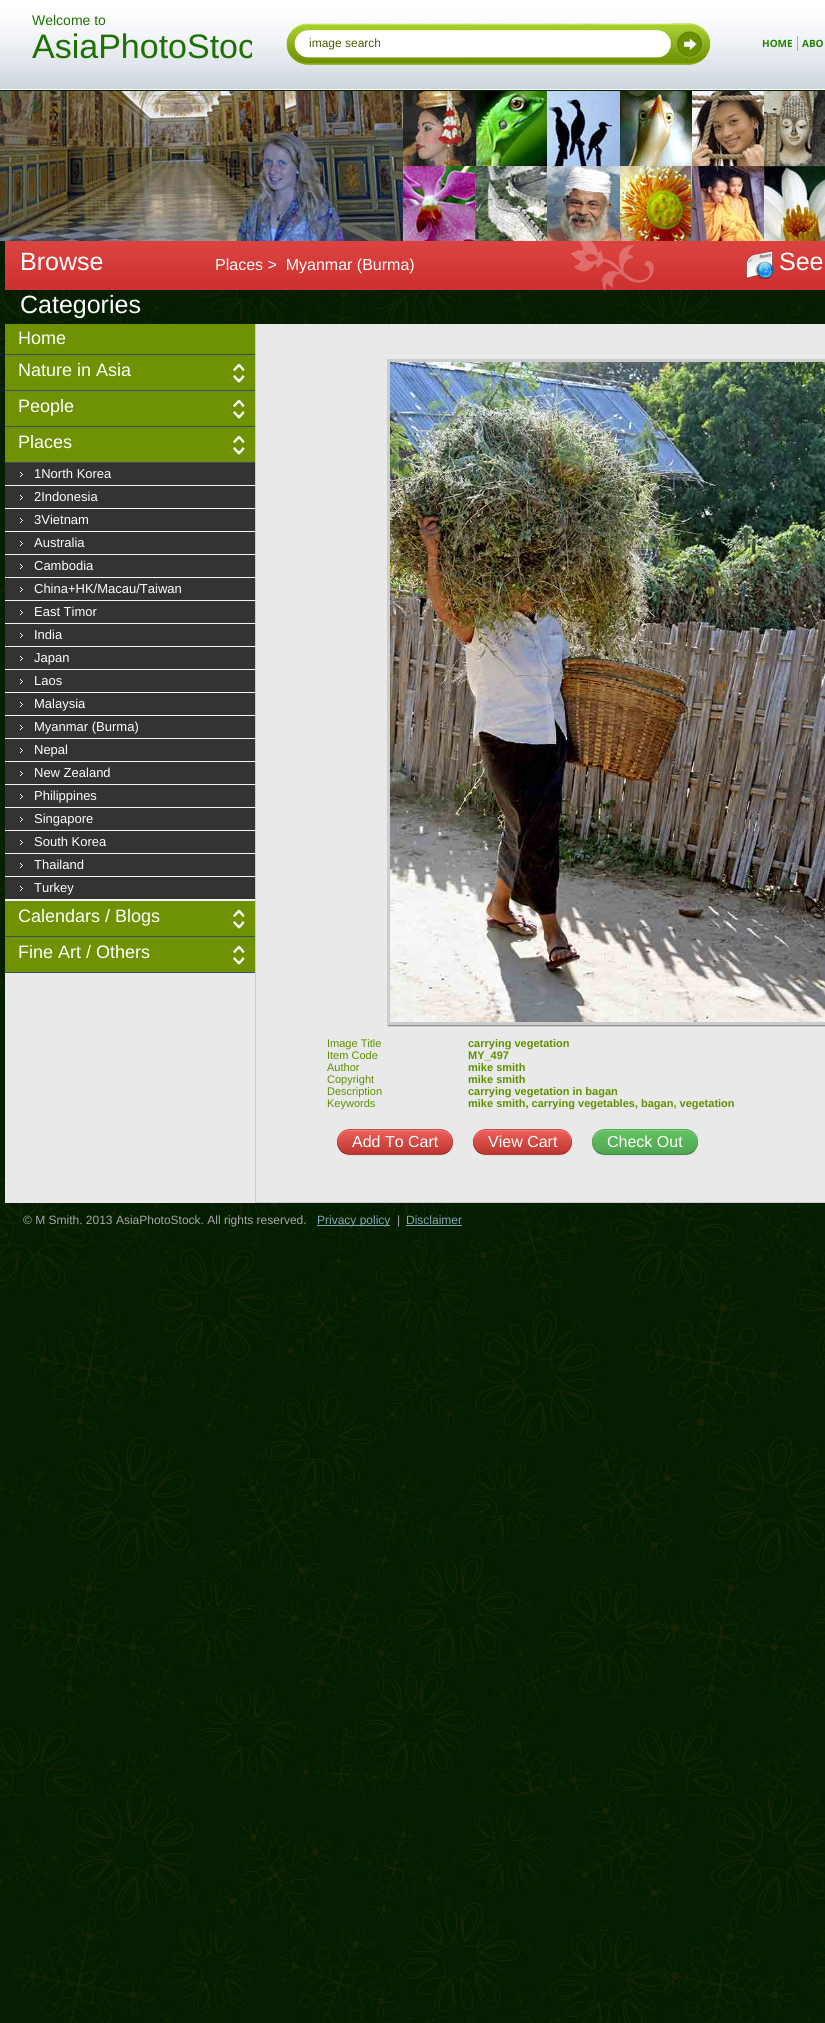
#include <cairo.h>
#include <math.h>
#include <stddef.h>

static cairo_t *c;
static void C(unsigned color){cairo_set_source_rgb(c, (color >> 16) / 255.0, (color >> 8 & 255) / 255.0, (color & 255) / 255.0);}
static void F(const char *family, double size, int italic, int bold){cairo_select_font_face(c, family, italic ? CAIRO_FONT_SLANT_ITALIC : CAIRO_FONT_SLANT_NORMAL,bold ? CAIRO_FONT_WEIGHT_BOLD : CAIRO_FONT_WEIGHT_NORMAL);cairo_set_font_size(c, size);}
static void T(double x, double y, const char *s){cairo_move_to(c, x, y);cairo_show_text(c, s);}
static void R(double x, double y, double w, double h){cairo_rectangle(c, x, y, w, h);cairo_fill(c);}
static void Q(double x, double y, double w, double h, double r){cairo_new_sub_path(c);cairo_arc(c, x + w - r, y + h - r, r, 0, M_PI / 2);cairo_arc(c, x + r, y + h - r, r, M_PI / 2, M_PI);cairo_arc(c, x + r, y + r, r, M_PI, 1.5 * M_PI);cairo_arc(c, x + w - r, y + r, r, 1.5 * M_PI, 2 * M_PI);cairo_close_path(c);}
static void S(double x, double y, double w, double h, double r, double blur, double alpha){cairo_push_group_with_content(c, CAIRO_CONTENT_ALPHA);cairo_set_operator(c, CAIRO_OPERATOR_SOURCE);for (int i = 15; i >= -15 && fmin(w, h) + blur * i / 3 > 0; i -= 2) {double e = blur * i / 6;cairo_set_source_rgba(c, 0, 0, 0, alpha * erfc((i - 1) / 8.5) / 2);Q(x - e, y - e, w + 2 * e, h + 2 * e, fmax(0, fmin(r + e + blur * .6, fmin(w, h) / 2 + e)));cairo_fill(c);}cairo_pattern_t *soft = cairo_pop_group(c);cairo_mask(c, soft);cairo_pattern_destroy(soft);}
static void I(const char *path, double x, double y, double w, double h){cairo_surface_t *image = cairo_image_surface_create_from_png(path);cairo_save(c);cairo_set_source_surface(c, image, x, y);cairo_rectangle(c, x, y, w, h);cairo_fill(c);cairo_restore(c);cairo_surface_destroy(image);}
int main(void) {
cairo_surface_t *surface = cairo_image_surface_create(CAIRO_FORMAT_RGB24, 825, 2023);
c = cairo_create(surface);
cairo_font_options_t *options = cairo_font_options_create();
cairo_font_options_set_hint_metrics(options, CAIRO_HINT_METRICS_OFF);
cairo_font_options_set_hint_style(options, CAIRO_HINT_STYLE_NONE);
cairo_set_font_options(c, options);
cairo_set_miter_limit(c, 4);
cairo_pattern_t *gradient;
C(0xffffff);
cairo_paint(c);
I("1.png",0,90,825,1933);
I("2.png",325,90,452,1);
I("3.png",0,0,825,90);
F("Liberation Sans",14,0,0);
C(0x1c7100);
T(32,25,"Welcome to");
cairo_save(c);
cairo_rectangle(c,32,33,220,36);
cairo_clip(c);
F("Liberation Sans",34,0,0);
T(32,58,"AsiaPhotoStoc");
cairo_restore(c);
I("4.png",286,23,386,42);
F("Liberation Sans",12,0,0);
C(0x475e00);
T(309,47,"image search");
I("5.png",672,23,39,42);
F("Open Sans",10,0,1);
C(0x278205);
T(762,47,"HOME");
C(0xaaaaaa);
R(797,36,1,15);
C(0x278205);
T(802,47,"ABO");
I("6.png",0,91,825,150);
I("7.png",5,241,820,50);
F("Liberation Sans",25,0,0);
C(0xffffff);
T(20,270,"Browse");
T(20,313,"Categories");
F("Liberation Sans",16,0,0);
T(215,270,"Places >  Myanmar (Burma)");
I("8.png",744,250,30,29);
F("Liberation Sans",25,0,0);
T(779,270,"See");
C(0xe9e9e9);
R(5,324,820,879);
C(0x454b54);
R(5,354,250,619);
C(0x6f9203);
R(5,324,250,30);
F("Liberation Sans",18,0,0);
C(0xffffff);
T(18,344,"Home");
C(0x6f9203);
R(5,355,250,35);
I("9.png",233,363,12,20);
C(0xffffff);
T(18,376,"Nature in Asia");
C(0x6f9203);
R(5,391,250,35);
I("9.png",233,399,12,20);
C(0xffffff);
T(18,412,"People");
C(0x6f9203);
R(5,427,250,35);
I("9.png",233,435,12,20);
C(0xffffff);
T(18,448,"Places");
C(0xf4f4f8);
R(5,485,250,416);
C(0x333333);
R(5,463,250,22);
I("10.png",20,472,3,5);
F("Liberation Sans",13,0,0);
C(0xffffff);
T(34,478,"1North Korea");
C(0x333333);
R(5,486,250,22);
I("10.png",20,495,3,5);
C(0xffffff);
T(34,501,"2Indonesia");
C(0x333333);
R(5,509,250,22);
I("10.png",20,518,3,5);
C(0xffffff);
T(34,524,"3Vietnam");
C(0x333333);
R(5,532,250,22);
I("10.png",20,541,3,5);
C(0xffffff);
T(34,547,"Australia");
C(0x333333);
R(5,555,250,22);
I("10.png",20,564,3,5);
C(0xffffff);
T(34,570,"Cambodia");
C(0x333333);
R(5,578,250,22);
I("10.png",20,587,3,5);
C(0xffffff);
T(34,593,"China+HK/Macau/Taiwan");
C(0x333333);
R(5,601,250,22);
I("10.png",20,610,3,5);
C(0xffffff);
T(34,616,"East Timor");
C(0x333333);
R(5,624,250,22);
I("10.png",20,633,3,5);
C(0xffffff);
T(34,639,"India");
C(0x333333);
R(5,647,250,22);
I("10.png",20,656,3,5);
C(0xffffff);
T(34,662,"Japan");
C(0x333333);
R(5,670,250,22);
I("10.png",20,679,3,5);
C(0xffffff);
T(34,685,"Laos");
C(0x333333);
R(5,693,250,22);
I("10.png",20,702,3,5);
C(0xffffff);
T(34,708,"Malaysia");
C(0x333333);
R(5,716,250,22);
I("10.png",20,725,3,5);
C(0xffffff);
T(34,731,"Myanmar (Burma)");
C(0x333333);
R(5,739,250,22);
I("10.png",20,748,3,5);
C(0xffffff);
T(34,754,"Nepal");
C(0x333333);
R(5,762,250,22);
I("10.png",20,771,3,5);
C(0xffffff);
T(34,777,"New Zealand");
C(0x333333);
R(5,785,250,22);
I("10.png",20,794,3,5);
C(0xffffff);
T(34,800,"Philippines");
C(0x333333);
R(5,808,250,22);
I("10.png",20,817,3,5);
C(0xffffff);
T(34,823,"Singapore");
C(0x333333);
R(5,831,250,22);
I("10.png",20,840,3,5);
C(0xffffff);
T(34,846,"South Korea");
C(0x333333);
R(5,854,250,22);
I("10.png",20,863,3,5);
C(0xffffff);
T(34,869,"Thailand");
C(0x333333);
R(5,877,250,22);
I("10.png",20,886,3,5);
C(0xffffff);
T(34,892,"Turkey");
C(0x6f9203);
R(5,901,250,35);
I("9.png",233,909,12,20);
F("Liberation Sans",18,0,0);
C(0xffffff);
T(18,922,"Calendars / Blogs");
C(0x6f9203);
R(5,937,250,35);
I("9.png",233,945,12,20);
C(0xffffff);
T(18,958,"Fine Art / Others");
cairo_save(c);
cairo_rectangle(c,5,324,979,879);
cairo_clip(c);
cairo_rectangle(c,255.5,323.5,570,879);
C(0xcccccc);
cairo_set_line_width(c,1);
cairo_stroke(c);
cairo_restore(c);
C(0x7e7e7e);
S(388,360,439,666,0,.5,1);
cairo_rectangle(c,388.5,360.5,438,663);
C(0xcccccc);
cairo_set_line_width(c,3);
cairo_stroke(c);
I("11.png",390,362,435,660);
F("Liberation Sans",11,0,0);
C(0x5f9000);
T(327,1047,"Image Title");
F("Liberation Sans",11,0,1);
T(468,1047,"carrying vegetation");
F("Liberation Sans",11,0,0);
T(327,1059,"Item Code");
F("Liberation Sans",11,0,1);
T(468,1059,"MY_497");
F("Liberation Sans",11,0,0);
T(327,1071,"Author");
F("Liberation Sans",11,0,1);
T(468,1071,"mike smith");
F("Liberation Sans",11,0,0);
T(327,1083,"Copyright");
F("Liberation Sans",11,0,1);
T(468,1083,"mike smith");
F("Liberation Sans",11,0,0);
T(327,1095,"Description");
F("Liberation Sans",11,0,1);
T(468,1095,"carrying vegetation in bagan");
F("Liberation Sans",11,0,0);
T(327,1107,"Keywords");
F("Liberation Sans",11,0,1);
T(468,1107,"mike smith, carrying vegetables, bagan, vegetation");
C(0x000000);
S(337,1130,116,26,13,1,.05);
C(0xda4f49);
Q(337,1129,116,26,13);
cairo_fill(c);
cairo_save(c);
Q(337,1129,116,26,13);
cairo_clip(c);
gradient = cairo_pattern_create_linear(395,1130,395,1154);
cairo_pattern_add_color_stop_rgba(gradient,0,0.933,0.373,0.357,1);
cairo_pattern_add_color_stop_rgba(gradient,1,0.741,0.212,0.184,1);
cairo_set_source(c,gradient);
cairo_pattern_destroy(gradient);
R(337,1130,116,24);
cairo_restore(c);
cairo_set_source_rgba(c,1,1,1,0.2);
cairo_new_path(c);
cairo_move_to(c,350,1131);
cairo_line_to(c,440,1131);
cairo_curve_to(c,447,1131,452,1136,452,1142);
cairo_curve_to(c,453,1127,434,1130,425,1130);
cairo_line_to(c,365,1130);
cairo_curve_to(c,356,1130,337,1127,338,1142);
cairo_curve_to(c,338,1136,343,1131,350,1131);
cairo_close_path(c);
cairo_fill(c);
cairo_new_path(c);
cairo_move_to(c,449,1151);
cairo_curve_to(c,446.5,1153,443.5,1154.5,440,1154.5);
cairo_line_to(c,350,1154.5);
cairo_curve_to(c,346.5,1154.5,343.5,1153,341,1151);
cairo_set_source_rgba(c,0,0,0,0.25);
cairo_set_line_width(c,1);
cairo_stroke(c);
cairo_new_path(c);
cairo_move_to(c,341,1151);
cairo_curve_to(c,338,1148,337,1143.5,337.5,1139.5);
cairo_curve_to(c,340.5,1126.5,355.5,1129.5,365,1129.5);
cairo_line_to(c,425,1129.5);
cairo_curve_to(c,434.5,1129.5,449.5,1126.5,452.5,1139.5);
cairo_curve_to(c,453,1143.5,452,1148,449,1151);
cairo_set_source_rgba(c,0,0,0,0.1);
cairo_stroke(c);
F("Liberation Sans",16,0,0);
C(0xffffff);
T(352,1147,"Add To Cart");
C(0x000000);
S(473,1130,99,26,13,1,.05);
C(0xda4f49);
Q(473,1129,99,26,13);
cairo_fill(c);
cairo_save(c);
Q(473,1129,99,26,13);
cairo_clip(c);
gradient = cairo_pattern_create_linear(523,1130,523,1154);
cairo_pattern_add_color_stop_rgba(gradient,0,0.933,0.373,0.357,1);
cairo_pattern_add_color_stop_rgba(gradient,1,0.741,0.212,0.184,1);
cairo_set_source(c,gradient);
cairo_pattern_destroy(gradient);
R(473,1130,99,24);
cairo_restore(c);
cairo_set_source_rgba(c,1,1,1,0.2);
cairo_new_path(c);
cairo_move_to(c,486,1131);
cairo_line_to(c,559,1131);
cairo_curve_to(c,566,1131,571,1136,571,1142);
cairo_curve_to(c,572,1128,556,1130,547,1130);
cairo_line_to(c,498,1130);
cairo_curve_to(c,489,1130,473,1128,474,1142);
cairo_curve_to(c,474,1136,479,1131,486,1131);
cairo_close_path(c);
cairo_fill(c);
cairo_new_path(c);
cairo_move_to(c,568,1151);
cairo_curve_to(c,565.5,1153,562.5,1154.5,559,1154.5);
cairo_line_to(c,486,1154.5);
cairo_curve_to(c,482.5,1154.5,479.5,1153,477,1151);
cairo_set_source_rgba(c,0,0,0,0.25);
cairo_stroke(c);
cairo_new_path(c);
cairo_move_to(c,477,1151);
cairo_curve_to(c,474,1148,473,1143.5,473.5,1139.5);
cairo_curve_to(c,476,1127.5,489,1129.5,498,1129.5);
cairo_line_to(c,547,1129.5);
cairo_curve_to(c,556,1129.5,569,1127.5,571.5,1139.5);
cairo_curve_to(c,572,1143.5,571,1148,568,1151);
cairo_set_source_rgba(c,0,0,0,0.1);
cairo_stroke(c);
C(0xffffff);
T(488,1147,"View Cart");
C(0x000000);
S(592,1130,106,26,13,1,.05);
C(0x5bb75b);
Q(592,1129,106,26,13);
cairo_fill(c);
cairo_save(c);
Q(592,1129,106,26,13);
cairo_clip(c);
gradient = cairo_pattern_create_linear(645,1130,645,1154);
cairo_pattern_add_color_stop_rgba(gradient,0,0.384,0.769,0.384,1);
cairo_pattern_add_color_stop_rgba(gradient,1,0.318,0.639,0.318,1);
cairo_set_source(c,gradient);
cairo_pattern_destroy(gradient);
R(592,1130,106,24);
cairo_restore(c);
cairo_set_source_rgba(c,1,1,1,0.2);
cairo_new_path(c);
cairo_move_to(c,605,1131);
cairo_line_to(c,685,1131);
cairo_curve_to(c,692,1131,697,1136,697,1142);
cairo_curve_to(c,698,1128,681,1130,672,1130);
cairo_line_to(c,618,1130);
cairo_curve_to(c,609,1130,592,1128,593,1142);
cairo_curve_to(c,593,1136,598,1131,605,1131);
cairo_close_path(c);
cairo_fill(c);
cairo_new_path(c);
cairo_move_to(c,694,1151);
cairo_curve_to(c,691.5,1153,688.5,1154.5,685,1154.5);
cairo_line_to(c,605,1154.5);
cairo_curve_to(c,601.5,1154.5,598.5,1153,596,1151);
cairo_set_source_rgba(c,0,0,0,0.25);
cairo_stroke(c);
cairo_new_path(c);
cairo_move_to(c,596,1151);
cairo_curve_to(c,593,1148,592,1143.5,592.5,1139.5);
cairo_curve_to(c,595,1127,609,1129.5,618.5,1129.5);
cairo_line_to(c,671.5,1129.5);
cairo_curve_to(c,681,1129.5,695,1127,697.5,1139.5);
cairo_curve_to(c,698,1143.5,697,1148,694,1151);
cairo_set_source_rgba(c,0,0,0,0.1);
cairo_stroke(c);
C(0xffffff);
T(607,1147,"Check Out");
F("Liberation Sans",12,0,0);
C(0xa7a7a7);
T(23,1224,"© M Smith. 2013 AsiaPhotoStock. All rights reserved.");
C(0x82a9b5);
R(317,1225,73,1);
T(317,1224,"Privacy policy");
C(0xa7a7a7);
T(397,1224,"|");
C(0x82a9b5);
T(406,1224,"Disclaimer");
R(406,1225,56,1);
cairo_surface_write_to_png(surface, "o.png");
cairo_font_options_destroy(options);
cairo_destroy(c);
cairo_surface_destroy(surface);
return 0;
}
